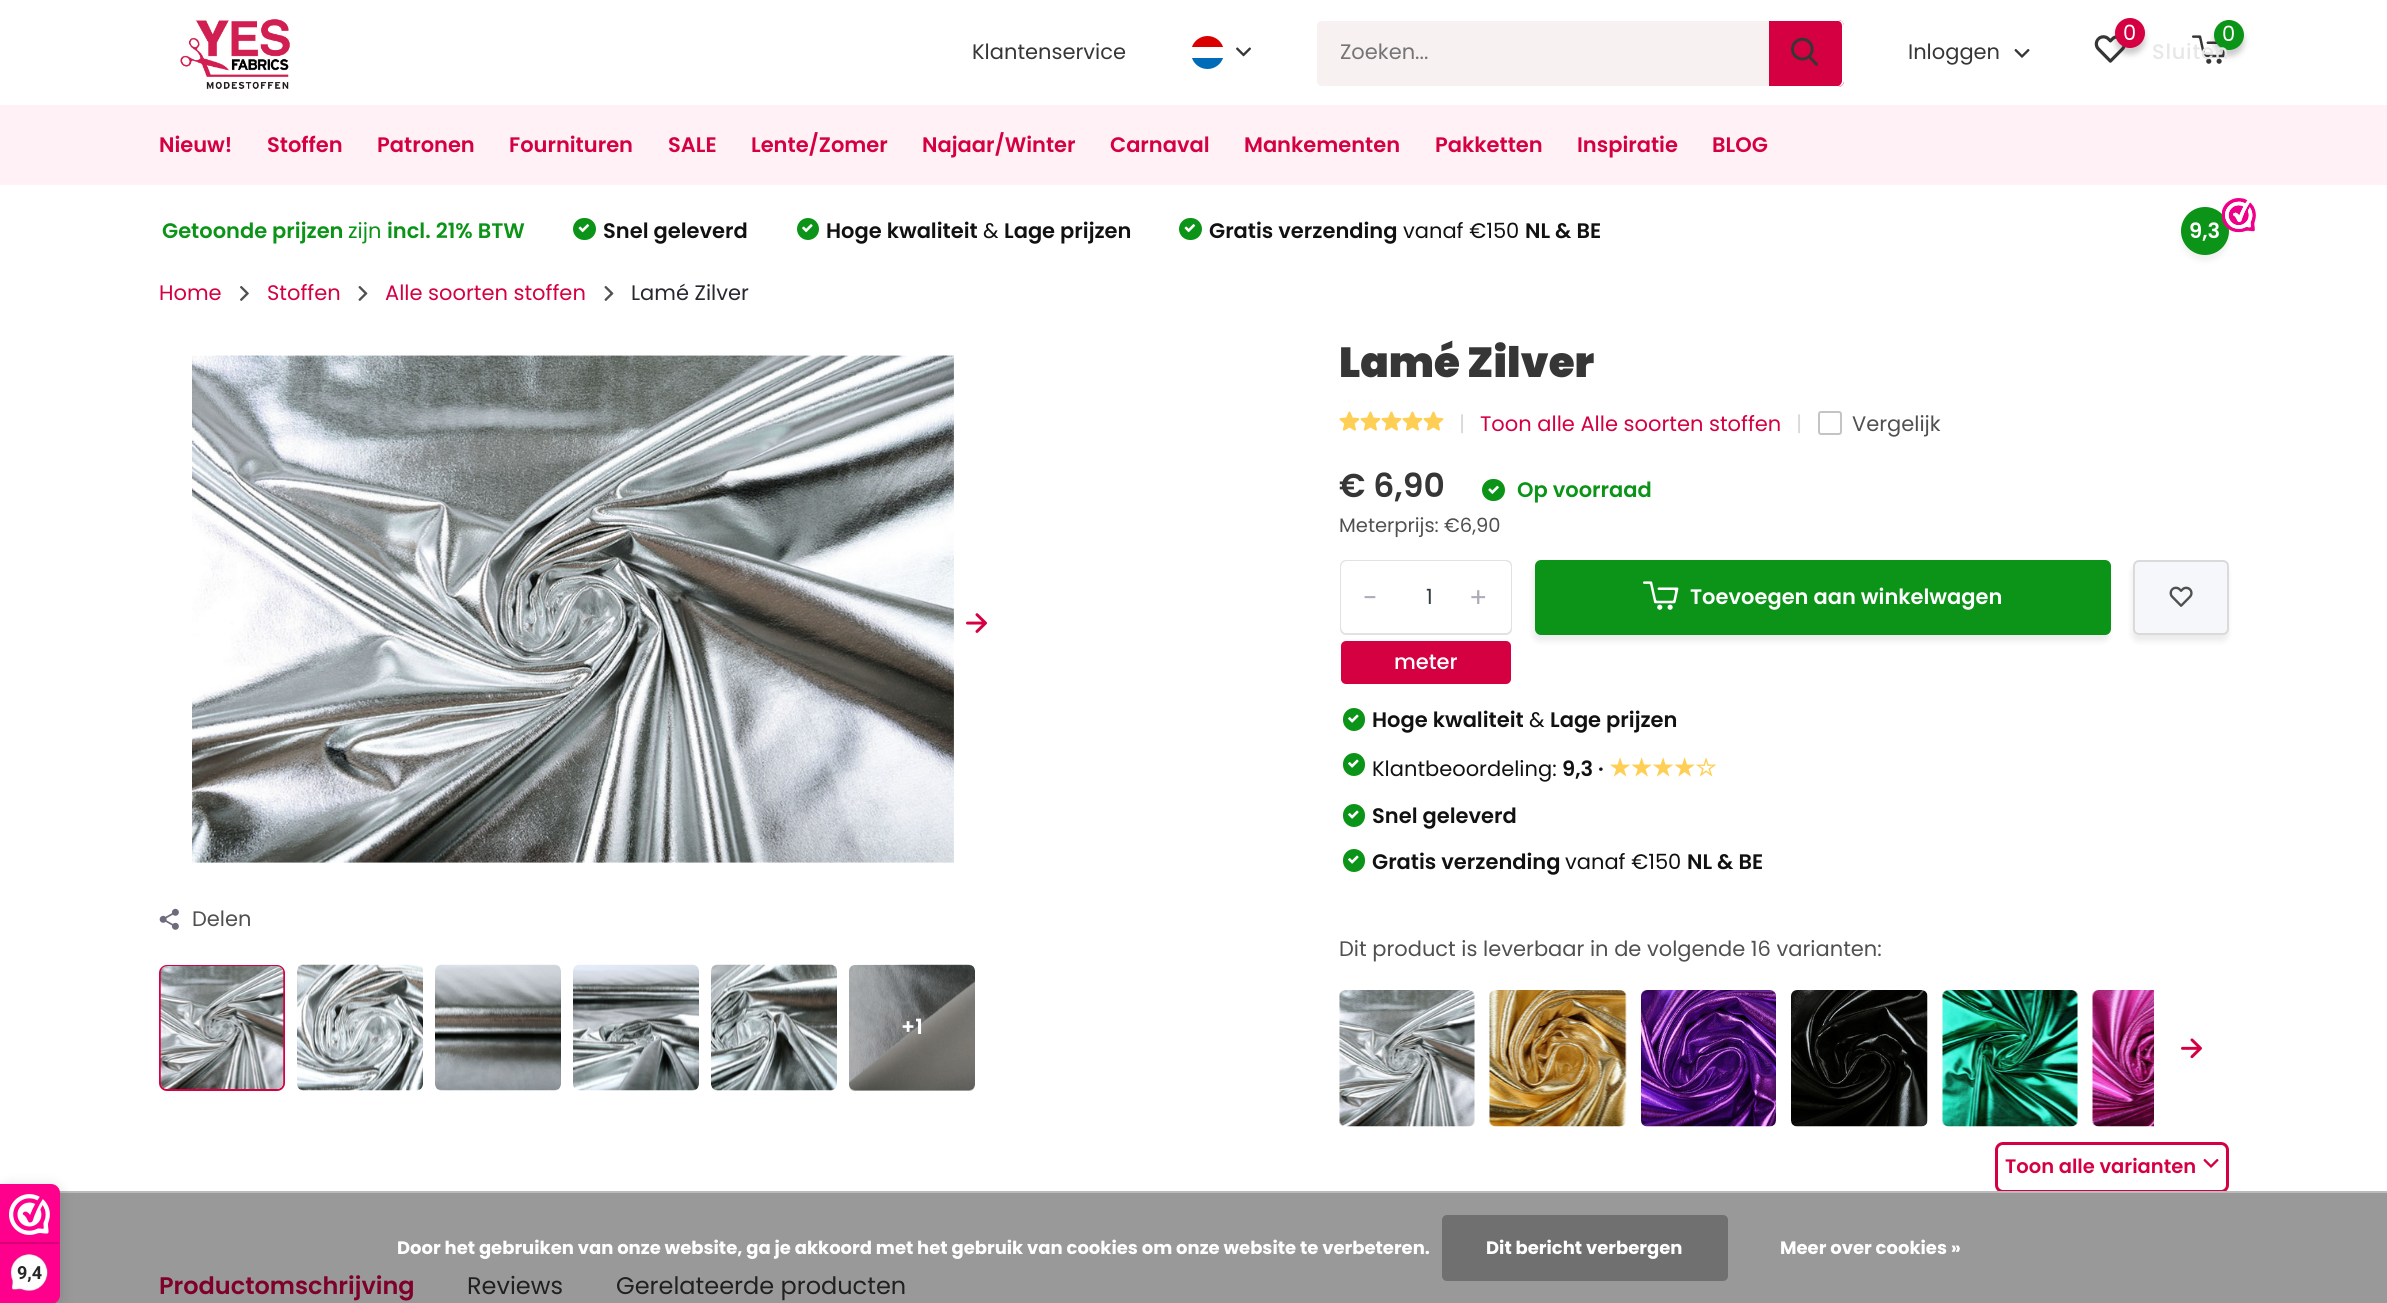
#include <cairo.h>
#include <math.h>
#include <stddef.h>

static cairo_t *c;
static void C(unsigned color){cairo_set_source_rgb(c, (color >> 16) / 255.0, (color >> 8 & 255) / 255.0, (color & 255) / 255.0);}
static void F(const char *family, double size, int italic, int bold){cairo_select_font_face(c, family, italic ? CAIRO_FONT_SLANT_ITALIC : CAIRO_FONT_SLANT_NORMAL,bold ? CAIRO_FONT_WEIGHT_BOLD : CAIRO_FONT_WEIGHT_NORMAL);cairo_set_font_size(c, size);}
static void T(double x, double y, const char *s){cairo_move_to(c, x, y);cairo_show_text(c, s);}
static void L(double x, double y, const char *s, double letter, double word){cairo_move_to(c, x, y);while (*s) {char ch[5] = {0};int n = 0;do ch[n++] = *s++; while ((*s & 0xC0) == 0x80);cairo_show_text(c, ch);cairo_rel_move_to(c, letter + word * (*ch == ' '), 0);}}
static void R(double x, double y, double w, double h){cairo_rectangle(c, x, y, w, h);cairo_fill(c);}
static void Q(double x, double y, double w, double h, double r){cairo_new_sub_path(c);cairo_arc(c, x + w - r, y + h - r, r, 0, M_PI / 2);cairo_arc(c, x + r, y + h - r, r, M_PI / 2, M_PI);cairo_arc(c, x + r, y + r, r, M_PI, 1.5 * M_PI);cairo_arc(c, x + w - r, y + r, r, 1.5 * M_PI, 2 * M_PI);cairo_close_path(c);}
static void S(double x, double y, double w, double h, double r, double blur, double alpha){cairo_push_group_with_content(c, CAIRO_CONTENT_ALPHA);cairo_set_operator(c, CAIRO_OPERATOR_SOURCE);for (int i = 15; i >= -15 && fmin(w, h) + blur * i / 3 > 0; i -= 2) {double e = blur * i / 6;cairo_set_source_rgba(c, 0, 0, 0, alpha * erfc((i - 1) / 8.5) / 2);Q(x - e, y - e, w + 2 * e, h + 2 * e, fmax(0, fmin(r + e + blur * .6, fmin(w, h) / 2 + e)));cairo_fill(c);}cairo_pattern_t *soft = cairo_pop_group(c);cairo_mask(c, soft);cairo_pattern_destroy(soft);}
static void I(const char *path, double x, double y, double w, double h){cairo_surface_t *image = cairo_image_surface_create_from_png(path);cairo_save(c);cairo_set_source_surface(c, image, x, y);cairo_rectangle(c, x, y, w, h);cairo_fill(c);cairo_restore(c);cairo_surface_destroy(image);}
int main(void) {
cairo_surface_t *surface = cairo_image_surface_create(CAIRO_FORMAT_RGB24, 2387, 1303);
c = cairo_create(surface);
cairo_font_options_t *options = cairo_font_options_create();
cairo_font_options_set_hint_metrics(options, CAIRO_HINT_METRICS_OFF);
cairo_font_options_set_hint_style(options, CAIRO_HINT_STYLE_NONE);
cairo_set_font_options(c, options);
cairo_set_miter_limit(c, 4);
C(0xffffff);
cairo_paint(c);
I("1.png",180,19,110,70);
I("2.png",2094,35,32,28);
C(0x282830);
S(2115,24,30,30,15,3,.25);
C(0xd40042);
cairo_arc(c,2130,33,15,0,2 * M_PI);
cairo_fill(c);
F("Poppins",21,0,0);
C(0xffffff);
T(2123,40,"0");
I("3.png",2192,35,34,29);
C(0x282830);
S(2214,26,30,30,15,3,.25);
C(0x0b9417);
cairo_arc(c,2229,35,15,0,2 * M_PI);
cairo_fill(c);
C(0xffffff);
T(2222,41,"0");
C(0x363636);
T(972,59,"Klantenservice");
I("4.png",1192,36,31,33);
I("5.png",1236,47,15,10);
C(0xd40042);
cairo_new_path(c);
cairo_move_to(c,1769,20);
cairo_line_to(c,1838,20);
cairo_curve_to(c,1841.5,20,1844,22.5,1844,26);
cairo_line_to(c,1844,81);
cairo_curve_to(c,1844,84.5,1841.5,87,1838,87);
cairo_line_to(c,1769,87);
cairo_close_path(c);
cairo_fill(c);
C(0xffffff);
cairo_set_fill_rule(c,CAIRO_FILL_RULE_EVEN_ODD);
cairo_new_path(c);
cairo_move_to(c,1768,20);
cairo_line_to(c,1838,20);
cairo_curve_to(c,1841,20,1844,22,1844,26);
cairo_line_to(c,1844,81);
cairo_curve_to(c,1844,84,1841,87,1838,87);
cairo_line_to(c,1768,87);
cairo_close_path(c);
cairo_move_to(c,1768,21);
cairo_line_to(c,1838,21);
cairo_curve_to(c,1840,21,1842,23,1842,26);
cairo_line_to(c,1842,81);
cairo_curve_to(c,1842,83,1840,86,1838,86);
cairo_line_to(c,1768,86);
cairo_close_path(c);
cairo_fill(c);
C(0xf7f1f2);
cairo_new_path(c);
cairo_move_to(c,1322,20);
cairo_line_to(c,1769,20);
cairo_line_to(c,1769,87);
cairo_line_to(c,1322,87);
cairo_curve_to(c,1318.5,87,1316,84.5,1316,81);
cairo_line_to(c,1316,26);
cairo_curve_to(c,1316,22.5,1318.5,20,1322,20);
cairo_close_path(c);
cairo_fill(c);
C(0xffffff);
cairo_new_path(c);
cairo_move_to(c,1322,20);
cairo_line_to(c,1768,20);
cairo_line_to(c,1768,87);
cairo_line_to(c,1322,87);
cairo_curve_to(c,1318,87,1316,84,1316,81);
cairo_line_to(c,1316,26);
cairo_curve_to(c,1316,22,1318,20,1322,20);
cairo_close_path(c);
cairo_move_to(c,1322,21);
cairo_line_to(c,1768,21);
cairo_line_to(c,1768,86);
cairo_line_to(c,1322,86);
cairo_curve_to(c,1319,86,1317,83,1317,81);
cairo_line_to(c,1317,26);
cairo_curve_to(c,1317,23,1319,21,1322,21);
cairo_close_path(c);
cairo_fill(c);
C(0x757575);
T(1340,59,"Zoeken...");
I("6.png",1791,37,28,29);
C(0x363636);
T(1908,59,"Inloggen");
I("7.png",2014,49,16,9);
F("Poppins Medium",21,0,0);
C(0xe5e8e6);
L(2152,59,"Sluiten",.75,0);
C(0xfff1f5);
R(0,105,2387,80);
F("Poppins SemiBold",21,0,0);
C(0xd40042);
T(159,152,"Nieuw!");
T(267,152,"Stoffen");
T(377,152,"Patronen");
T(509,152,"Fournituren");
T(668,152,"SALE");
T(751,152,"Lente/Zomer");
T(922,152,"Najaar/Winter");
T(1110,152,"Carnaval");
T(1244,152,"Mankementen");
T(1435,152,"Pakketten");
T(1577,152,"Inspiratie");
T(1712,152,"BLOG");
C(0x0b9417);
T(162,238,"Getoonde prijzen");
F("Poppins",21,0,0);
T(348,238,"zijn");
F("Poppins SemiBold",21,0,0);
T(387,238,"incl. 21% BTW");
Q(573,218,23,22,11);
cairo_fill(c);
I("8.png",578,224,12,9);
C(0x111111);
T(603,238,"Snel geleverd");
C(0x0b9417);
cairo_new_path(c);
cairo_arc(c,808,229,11,0,2 * M_PI);
cairo_fill(c);
I("9.png",802,224,11,9);
C(0x111111);
T(826,238,"Hoge kwaliteit");
F("Poppins",21,0,0);
T(983,238,"&");
F("Poppins SemiBold",21,0,0);
T(1004,238,"Lage prijzen");
C(0x0b9417);
Q(1179,218,23,22,11);
cairo_fill(c);
I("8.png",1184,224,12,9);
C(0x111111);
T(1209,238,"Gratis verzending");
F("Poppins",21,0,0);
T(1403,238,"vanaf €150");
F("Poppins SemiBold",21,0,0);
T(1525,238,"NL & BE");
C(0x000000);
S(2181,213,48,48,24,3,.06);
C(0x0b9417);
cairo_arc(c,2205,231,24,0,2 * M_PI);
cairo_fill(c);
C(0xffffff);
T(2189,238,"9,3");
I("10.png",2222,198,34,35);
F("Poppins",21,0,0);
C(0xd40042);
T(159,300,"Home");
I("11.png",240,286,9,15);
T(267,300,"Stoffen");
I("12.png",358,286,10,15);
T(385,300,"Alle soorten stoffen");
I("12.png",604,286,10,15);
C(0x282830);
T(631,300,"Lamé Zilver");
I("13.png",192,355,762,508);
I("14.png",966,613,21,20);
I("15.png",159,908,20,22);
C(0x505050);
T(192,926,"Delen");
Q(160,966,124,124,7);
C(0xd40042);
cairo_stroke(c);
I("16.png",160,966,124,123);
I("17.png",297,964,126,127);
I("18.png",435,964,126,127);
I("19.png",573,964,126,127);
I("20.png",711,964,126,127);
I("21.png",849,964,126,127);
cairo_set_source_rgba(c,0,0,0,0.3);
Q(849,965,126,126,6);
cairo_fill(c);
F("Poppins SemiBold",21,0,0);
C(0xffffff);
T(901,1034,"+1");
F("Poppins Black",42,0,0);
C(0x363636);
T(1339,377,"Lamé Zilver");
I("22.png",1339,411,21,20);
I("22.png",1360,411,21,20);
I("22.png",1381,411,21,20);
I("22.png",1402,411,21,20);
I("22.png",1423,411,21,20);
F("Poppins",21,0,0);
C(0xdadada);
T(1459,431,"|");
C(0xd40042);
T(1480,431,"Toon alle Alle soorten stoffen");
C(0xdadada);
T(1796,431,"|");
Q(1819,412,22,22,2);
C(0xc4c4c4);
cairo_stroke(c);
C(0x505050);
T(1852,431,"Vergelijk");
F("Poppins SemiBold",33,0,0);
C(0x363636);
T(1339,497,"€ 6,90");
C(0x0b9417);
Q(1482,479,23,22,11);
cairo_fill(c);
I("23.png",1488,485,11,9);
F("Poppins SemiBold",21,0,0);
T(1517,497,"Op voorraad");
F("Poppins",19.5,0,0);
C(0x505050);
T(1339,532,"Meterprijs: €6,90");
Q(1341,561,170,73,5);
C(0xe2e2e2);
cairo_stroke(c);
C(0xffffff);
Q(1341,561,170,72,6);
cairo_fill(c);
F("Poppins",21,0,0);
C(0x303c43);
T(1426,604,"1");
F("Poppins",27,0,0);
C(0xadadba);
T(1363,607,"-");
T(1469,607,"+");
C(0xd40042);
Q(1341,641,170,43,5);
cairo_fill(c);
F("Poppins Medium",21,0,0);
C(0xffffff);
T(1394,669,"meter");
C(0x000000);
S(1533,566,576,75,6,3,.08);
C(0x0b9417);
Q(1535,560,576,75,6);
cairo_fill(c);
I("24.png",1643,581,36,29);
F("Poppins SemiBold",21,0,0);
C(0xffffff);
T(1690,604,"Toevoegen aan winkelwagen");
C(0x000000);
S(2132,566,96,75,6,3,.08);
C(0xf5f7fa);
Q(2134,561,94,73,5);
cairo_fill_preserve(c);
C(0xdadada);
cairo_stroke(c);
I("25.png",2169,586,24,21);
C(0x0b9417);
Q(1343,708,22,23,11);
cairo_fill(c);
I("26.png",1348,714,11,9);
C(0x111111);
T(1372,727,"Hoge kwaliteit");
F("Poppins",21,0,0);
T(1529,727,"&");
F("Poppins SemiBold",21,0,0);
T(1550,727,"Lage prijzen");
C(0x0b9417);
Q(1343,753,22,23,11);
cairo_fill(c);
I("26.png",1348,759,11,9);
F("Poppins",21,0,0);
C(0x111111);
T(1372,776,"Klantbeoordeling:");
F("Poppins SemiBold",21,0,0);
T(1562,776,"9,3 ·");
F("DejaVu Sans",24,0,1);
C(0xffce54);
T(1609,776,"★★★★☆");
C(0x0b9417);
Q(1343,804,22,23,11);
cairo_fill(c);
I("26.png",1348,810,11,9);
F("Poppins SemiBold",21,0,0);
C(0x111111);
T(1372,823,"Snel geleverd");
C(0x0b9417);
Q(1343,849,22,23,11);
cairo_fill(c);
I("26.png",1348,855,11,9);
C(0x111111);
T(1372,869,"Gratis verzending");
F("Poppins",21,0,0);
T(1565,869,"vanaf €150");
F("Poppins SemiBold",21,0,0);
T(1687,869,"NL & BE");
F("Poppins",21,0,0);
C(0x505050);
T(1339,956,"Dit product is leverbaar in de volgende 16 varianten:");
I("27.png",1339,990,136,137);
I("28.png",1489,990,138,137);
I("29.png",1641,990,135,137);
I("30.png",1791,990,137,137);
I("31.png",1942,990,136,137);
I("32.png",2092,990,62,137);
I("33.png",2181,1038,21,21);
Q(1996.5,1143.5,231,48,6.5);
C(0xd40042);
cairo_set_line_width(c,3);
cairo_stroke(c);
F("Poppins SemiBold",19.5,0,0);
T(2005,1173,"Toon alle varianten");
I("34.png",2203,1159,16,9);
F("Poppins SemiBold",24,0,0);
T(159,1294,"Productomschrijving");
F("Poppins",24,0,0);
C(0x363636);
T(467,1294,"Reviews");
T(616,1294,"Gerelateerde producten");
cairo_set_source_rgba(c,0,0,0,0.4);
R(55,1193,2332,110);
C(0xbbbbbb);
R(59,1191,2328,2);
F("Poppins",18,0,1);
C(0xffffff);
T(397,1254,"Door het gebruiken van onze website, ga je akkoord met het gebruik van cookies om onze website te verbeteren.");
C(0x707070);
Q(1442,1215,286,66,5);
cairo_fill(c);
C(0xffffff);
T(1486,1254,"Dit bericht verbergen");
T(1780,1254,"Meer over cookies »");
C(0x000000);
S(0,1187,60,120,9,7.5,.15);
C(0xfe008c);
cairo_new_path(c);
cairo_move_to(c,0,1184);
cairo_line_to(c,51,1184);
cairo_curve_to(c,56,1184,60,1188,60,1193);
cairo_line_to(c,60,1295);
cairo_curve_to(c,60,1300,56,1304,51,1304);
cairo_line_to(c,0,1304);
cairo_close_path(c);
cairo_fill(c);
I("35.png",9,1194,41,41);
C(0xd80077);
R(0,1242,59,2);
I("36.png",10,1254,38,38);
F("Roboto",18,0,1);
C(0x272626);
T(17,1279,"9,4");
cairo_surface_write_to_png(surface, "o.png");
cairo_font_options_destroy(options);
cairo_destroy(c);
cairo_surface_destroy(surface);
return 0;
}
